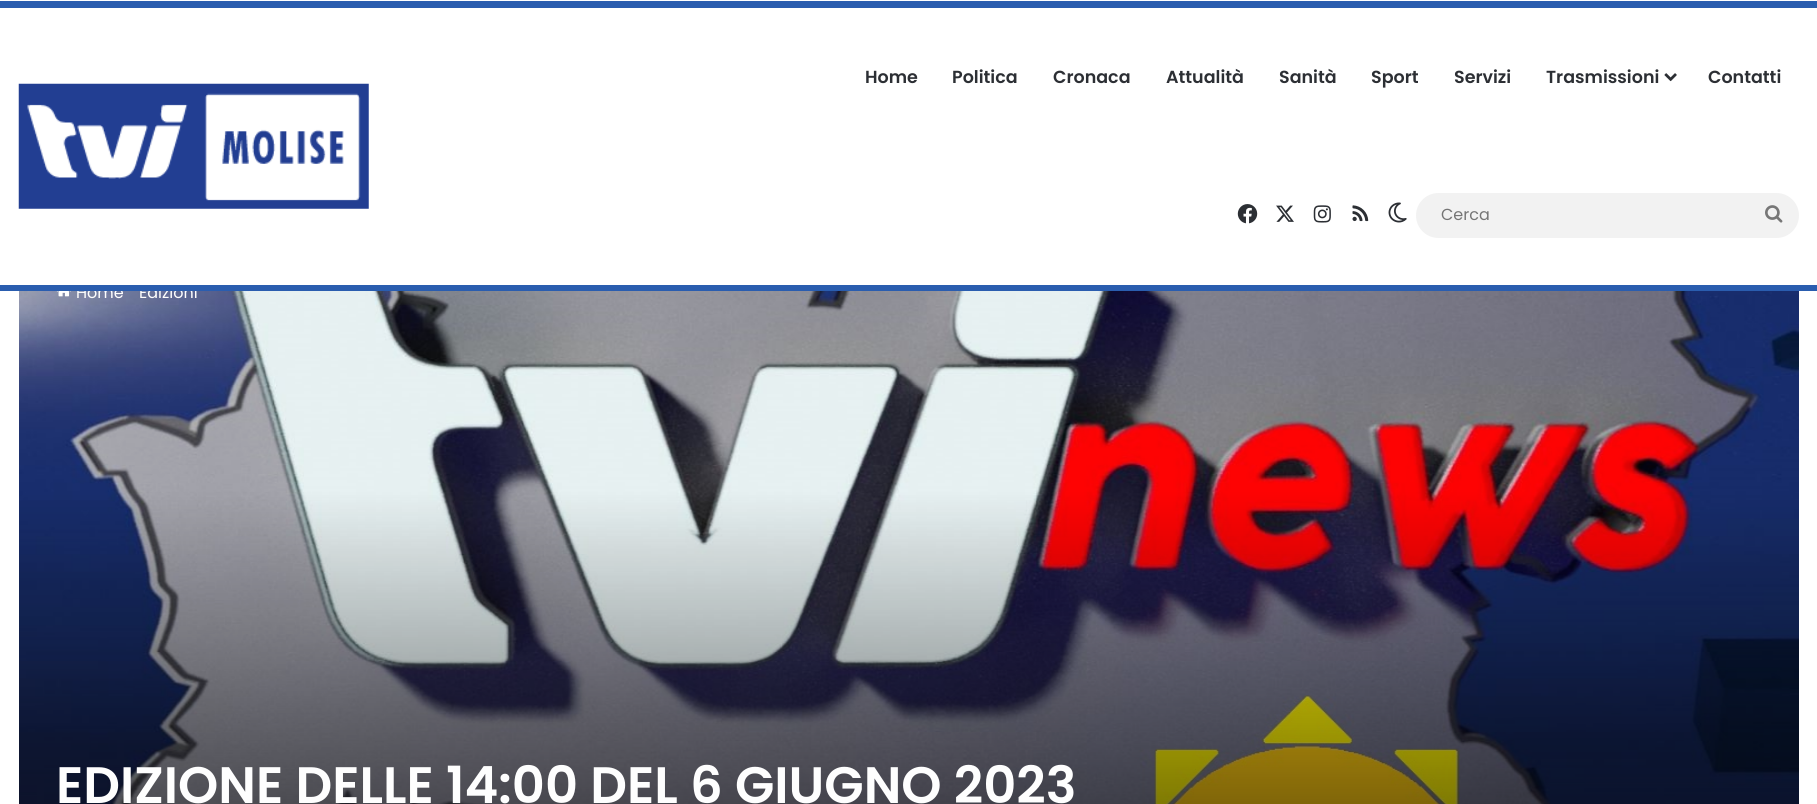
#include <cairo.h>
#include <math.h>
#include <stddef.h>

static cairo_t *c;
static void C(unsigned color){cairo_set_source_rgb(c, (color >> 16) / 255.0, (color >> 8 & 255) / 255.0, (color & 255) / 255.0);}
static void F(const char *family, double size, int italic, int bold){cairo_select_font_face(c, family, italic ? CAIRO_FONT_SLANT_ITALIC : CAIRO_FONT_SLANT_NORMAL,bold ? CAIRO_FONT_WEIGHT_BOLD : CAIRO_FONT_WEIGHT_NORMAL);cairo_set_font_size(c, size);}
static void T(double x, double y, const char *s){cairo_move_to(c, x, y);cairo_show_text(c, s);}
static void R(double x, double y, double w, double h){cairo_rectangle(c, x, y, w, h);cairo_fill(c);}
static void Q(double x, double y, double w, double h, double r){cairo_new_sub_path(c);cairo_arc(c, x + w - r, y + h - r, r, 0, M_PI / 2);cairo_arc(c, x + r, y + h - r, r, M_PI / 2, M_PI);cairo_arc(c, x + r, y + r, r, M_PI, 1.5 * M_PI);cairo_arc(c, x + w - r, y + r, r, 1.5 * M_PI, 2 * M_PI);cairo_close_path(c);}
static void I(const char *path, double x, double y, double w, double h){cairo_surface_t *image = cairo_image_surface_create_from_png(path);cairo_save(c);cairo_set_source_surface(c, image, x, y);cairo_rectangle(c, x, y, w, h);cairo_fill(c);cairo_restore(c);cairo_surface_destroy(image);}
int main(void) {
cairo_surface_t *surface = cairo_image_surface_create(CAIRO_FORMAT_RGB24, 1817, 804);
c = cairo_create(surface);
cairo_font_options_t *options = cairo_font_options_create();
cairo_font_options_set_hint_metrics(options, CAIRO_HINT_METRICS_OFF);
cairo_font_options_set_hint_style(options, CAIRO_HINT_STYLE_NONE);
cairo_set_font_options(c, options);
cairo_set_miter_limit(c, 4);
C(0xffffff);
cairo_paint(c);
C(0x2a5daf);
R(0,1,1817,7);
I("10.png",19,291,1780,513);
F("Poppins",16,0,0);
C(0xfefefe);
T(76,298,"Home");
T(139,298,"Edizioni");
C(0x2a5daf);
R(0,285,1817,6);
I("1.png",18,83,351,126);
F("Poppins SemiBold",17.5,0,0);
C(0x2c2f34);
T(865,83,"Home");
T(952,83,"Politica");
T(1053,83,"Cronaca");
T(1166,83,"Attualità");
T(1279,83,"Sanità");
T(1371,83,"Sport");
T(1454,83,"Servizi");
T(1546,83,"Trasmissioni");
I("2.png",1664,73,13,9);
T(1708,83,"Contatti");
I("3.png",1237,204,21,20);
I("4.png",1276,205,18,17);
I("5.png",1313,205,18,18);
I("6.png",1352,205,17,17);
I("7.png",1388,202,19,21);
C(0xf2f2f2);
Q(1416,193,383,45,22.5);
cairo_fill(c);
F("Poppins",16,0,0);
C(0x757575);
T(1441,220,"Cerca");
I("8.png",1765,205,18,18);
I("9.png",56,291,15,6);
F("Poppins SemiBold",51.25,0,0);
C(0xfefefe);
T(56,803,"EDIZIONE DELLE 14:00 DEL 6 GIUGNO 2023");
cairo_surface_write_to_png(surface, "o.png");
cairo_font_options_destroy(options);
cairo_destroy(c);
cairo_surface_destroy(surface);
return 0;
}
